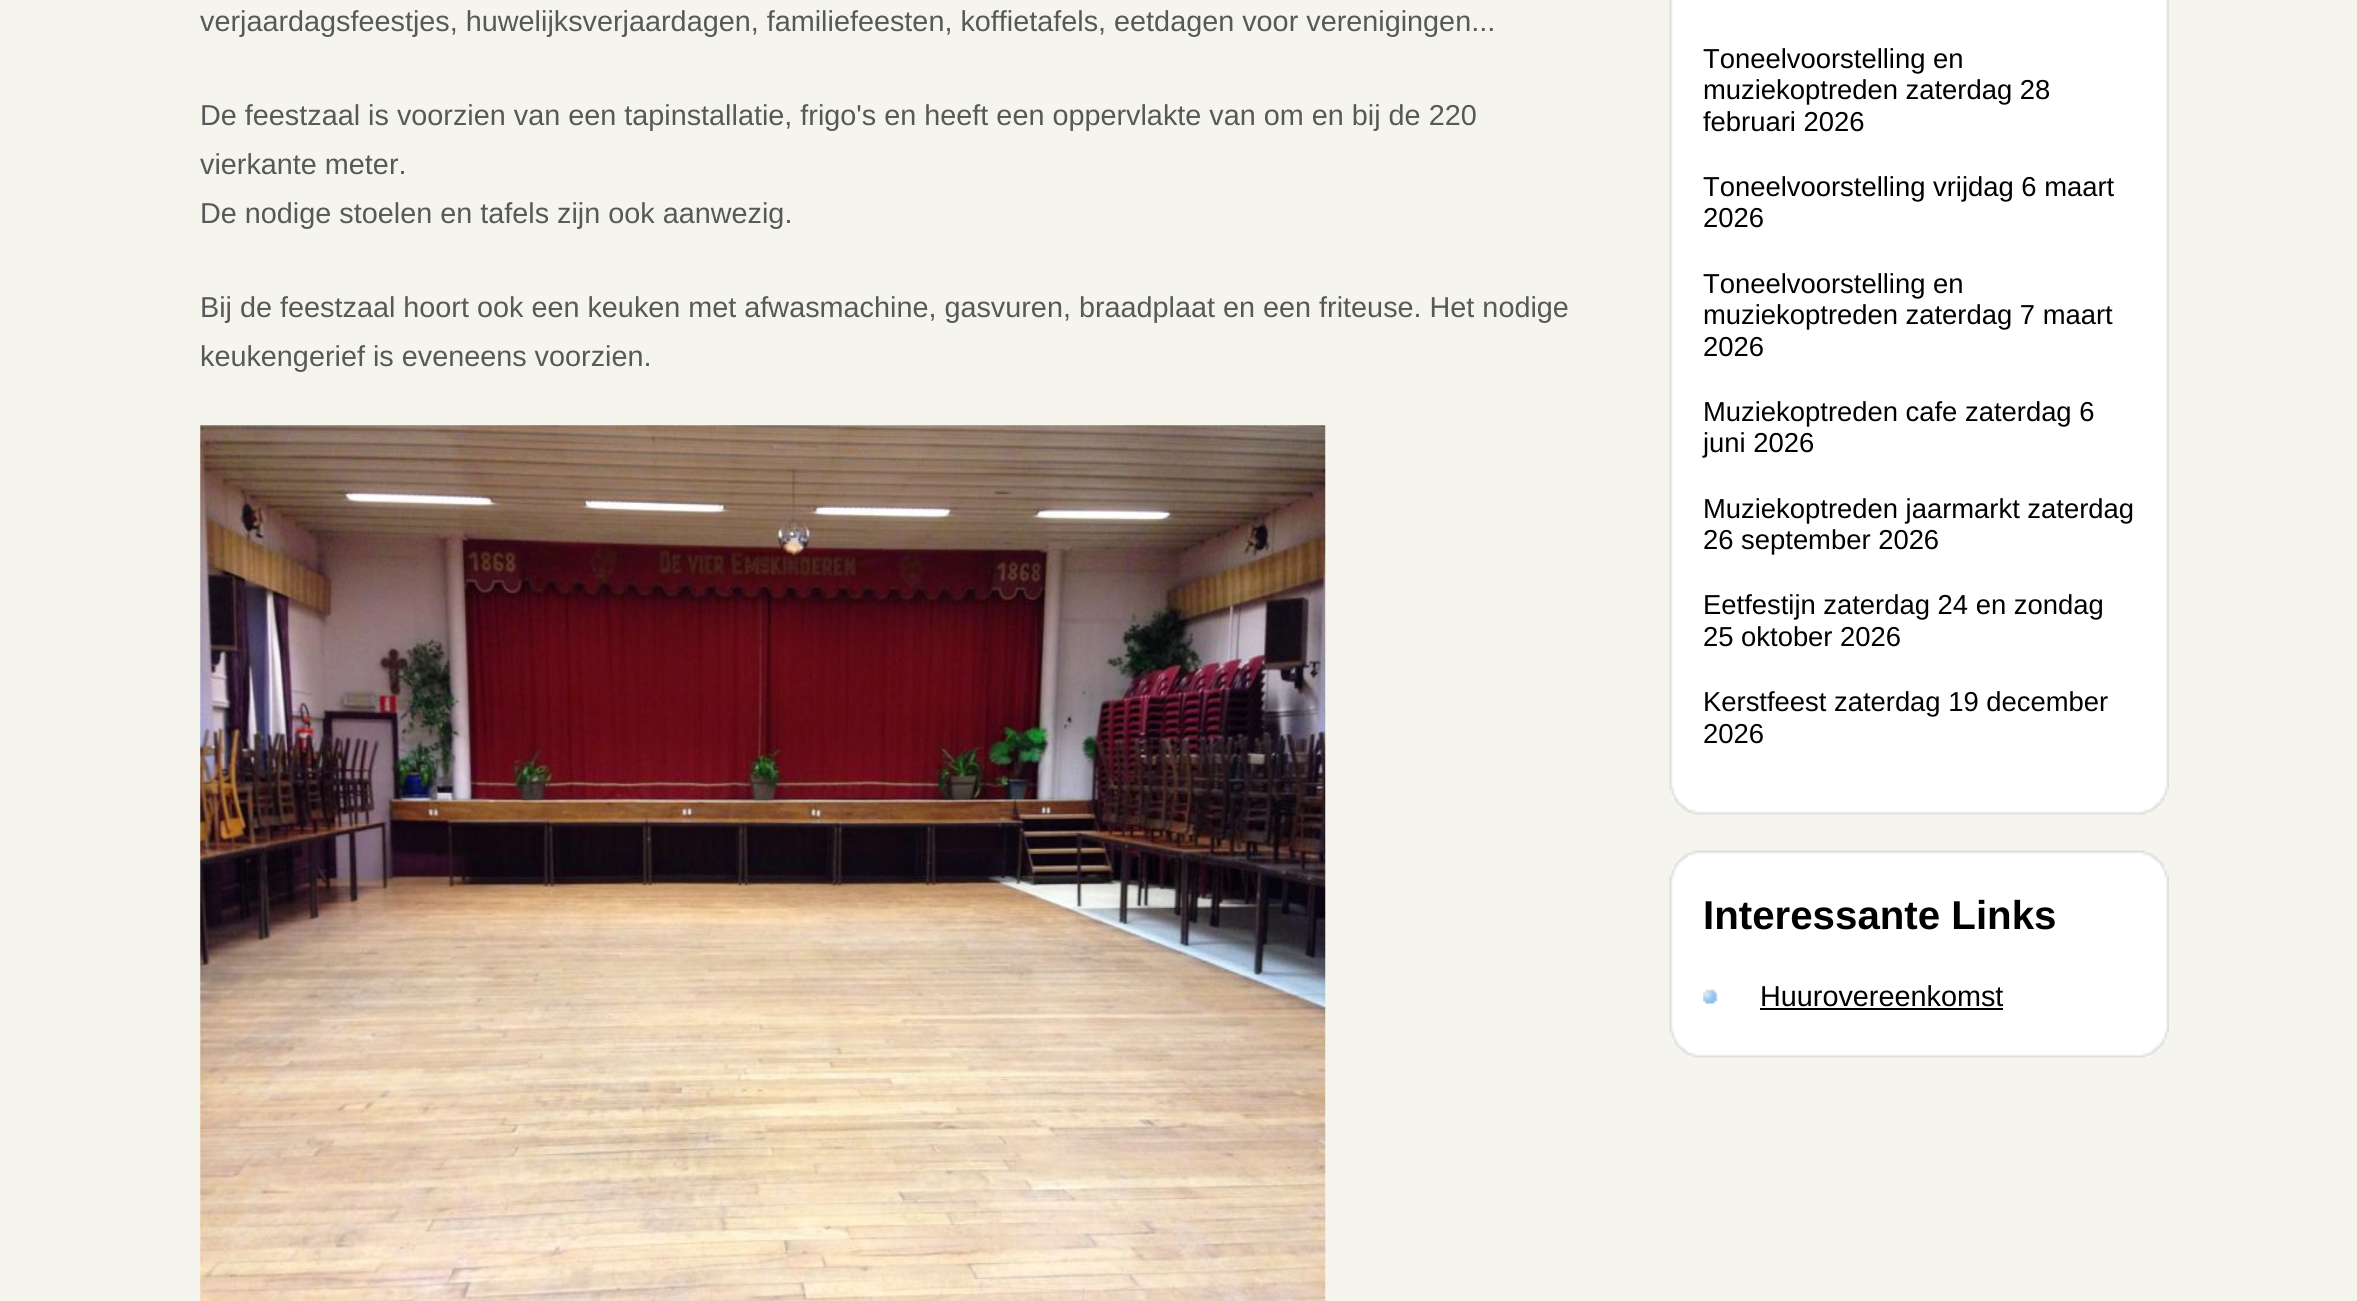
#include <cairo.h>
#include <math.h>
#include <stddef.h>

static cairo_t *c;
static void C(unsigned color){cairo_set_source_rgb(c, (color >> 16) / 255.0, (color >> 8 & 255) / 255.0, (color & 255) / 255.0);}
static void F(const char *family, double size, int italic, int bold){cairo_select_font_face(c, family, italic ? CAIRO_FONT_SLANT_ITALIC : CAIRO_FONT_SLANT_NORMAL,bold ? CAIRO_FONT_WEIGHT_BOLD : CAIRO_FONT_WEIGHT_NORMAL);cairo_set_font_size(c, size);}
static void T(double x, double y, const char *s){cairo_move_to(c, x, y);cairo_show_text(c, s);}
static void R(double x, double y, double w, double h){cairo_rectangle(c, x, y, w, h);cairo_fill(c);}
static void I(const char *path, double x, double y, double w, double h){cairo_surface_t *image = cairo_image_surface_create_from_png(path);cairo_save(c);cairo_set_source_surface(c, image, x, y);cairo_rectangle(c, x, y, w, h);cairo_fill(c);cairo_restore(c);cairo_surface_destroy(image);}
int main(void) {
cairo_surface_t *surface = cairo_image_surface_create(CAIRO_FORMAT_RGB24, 2357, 1301);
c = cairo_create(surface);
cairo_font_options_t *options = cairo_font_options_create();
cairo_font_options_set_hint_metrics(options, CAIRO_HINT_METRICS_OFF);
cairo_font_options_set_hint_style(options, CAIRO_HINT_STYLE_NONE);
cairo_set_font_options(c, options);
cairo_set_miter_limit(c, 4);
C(0xf5f5ee);
cairo_paint(c);
F("Liberation Sans",28.8,0,0);
C(0x585858);
T(200,31,"verjaardagsfeestjes, huwelijksverjaardagen, familiefeesten, koffietafels, eetdagen voor verenigingen...");
T(200,125,"De feestzaal is voorzien van een tapinstallatie, frigo's en heeft een oppervlakte van om en bij de 220");
T(200,174,"vierkante meter.");
T(200,223,"De nodige stoelen en tafels zijn ook aanwezig.");
T(200,317,"Bij de feestzaal hoort ook een keuken met afwasmachine, gasvuren, braadplaat en een friteuse. Het nodige");
T(200,366,"keukengerief is eveneens voorzien.");
I("1.png",200,425,1126,876);
I("2.png",1669,0,500,783);
F("Liberation Sans",27.4,0,0);
C(0x000000);
T(1703,68,"Toneelvoorstelling en");
T(1703,99,"muziekoptreden zaterdag 28");
T(1703,131,"februari 2026");
T(1703,196,"Toneelvoorstelling vrijdag 6 maart");
T(1703,227,"2026");
T(1703,293,"Toneelvoorstelling en");
T(1703,324,"muziekoptreden zaterdag 7 maart");
T(1703,356,"2026");
T(1703,421,"Muziekoptreden cafe zaterdag 6");
T(1703,452,"juni 2026");
T(1703,518,"Muziekoptreden jaarmarkt zaterdag");
T(1703,549,"26 september 2026");
T(1703,614,"Eetfestijn zaterdag 24 en zondag");
T(1703,646,"25 oktober 2026");
T(1703,711,"Kerstfeest zaterdag 19 december");
T(1703,743,"2026");
I("3.png",1669,783,500,32);
I("4.png",1669,850,500,32);
I("5.png",1669,882,500,144);
F("Liberation Sans",40.25,0,1);
T(1703,929,"Interessante Links");
I("6.png",1703,989,15,16);
F("Liberation Sans",28.8,0,0);
T(1760,1006,"Huurovereenkomst");
R(1760,1008,243,2);
I("7.png",1669,1026,500,32);
cairo_surface_write_to_png(surface, "o.png");
cairo_font_options_destroy(options);
cairo_destroy(c);
cairo_surface_destroy(surface);
return 0;
}
